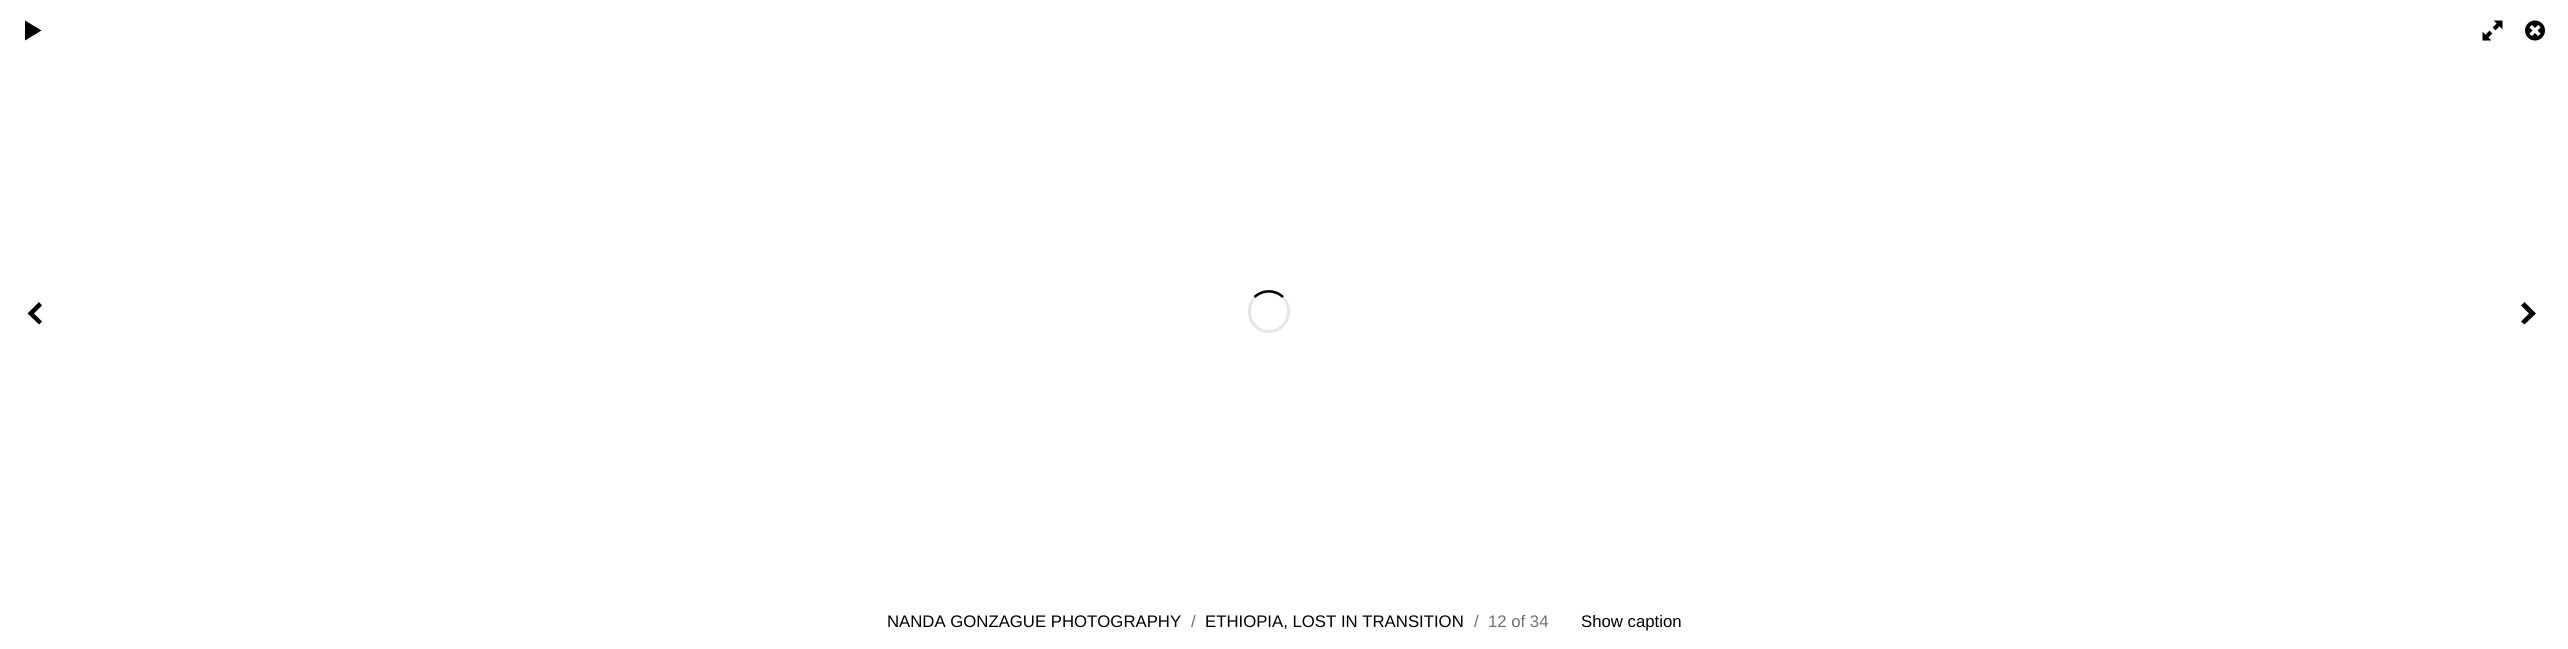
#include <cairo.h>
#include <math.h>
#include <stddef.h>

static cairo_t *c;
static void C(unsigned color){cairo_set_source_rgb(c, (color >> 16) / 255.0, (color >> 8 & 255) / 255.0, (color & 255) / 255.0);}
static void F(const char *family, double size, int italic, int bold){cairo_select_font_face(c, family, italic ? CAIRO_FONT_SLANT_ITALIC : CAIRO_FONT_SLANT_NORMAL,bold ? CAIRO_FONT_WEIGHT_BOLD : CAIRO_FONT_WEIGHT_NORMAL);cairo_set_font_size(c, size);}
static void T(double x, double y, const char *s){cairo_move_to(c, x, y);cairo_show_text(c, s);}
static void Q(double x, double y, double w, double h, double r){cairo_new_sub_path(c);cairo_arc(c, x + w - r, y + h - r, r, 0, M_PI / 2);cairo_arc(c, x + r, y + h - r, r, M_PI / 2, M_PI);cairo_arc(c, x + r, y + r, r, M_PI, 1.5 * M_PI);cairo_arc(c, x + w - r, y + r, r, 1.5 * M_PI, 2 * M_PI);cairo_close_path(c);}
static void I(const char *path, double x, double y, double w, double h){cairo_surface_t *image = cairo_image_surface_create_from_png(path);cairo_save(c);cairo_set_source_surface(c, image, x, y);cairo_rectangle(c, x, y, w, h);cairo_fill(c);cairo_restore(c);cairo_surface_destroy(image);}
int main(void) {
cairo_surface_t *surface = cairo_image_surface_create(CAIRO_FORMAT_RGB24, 2568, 649);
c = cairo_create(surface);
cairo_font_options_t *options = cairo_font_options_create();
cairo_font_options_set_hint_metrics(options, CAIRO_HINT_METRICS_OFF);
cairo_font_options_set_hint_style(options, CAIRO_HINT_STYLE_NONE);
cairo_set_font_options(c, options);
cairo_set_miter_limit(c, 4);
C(0xffffff);
cairo_paint(c);
C(0x000000);
cairo_new_path(c);
cairo_move_to(c,25,40.5);
cairo_line_to(c,25,20.5);
cairo_line_to(c,41.5,30.5);
cairo_close_path(c);
cairo_fill(c);
I("1.png",2482,20,21,21);
I("2.png",2525,20,20,21);
cairo_new_path(c);
cairo_move_to(c,27.5,313.5);
cairo_line_to(c,39,302);
cairo_line_to(c,42,305.5);
cairo_line_to(c,34,313.5);
cairo_line_to(c,42,321.5);
cairo_line_to(c,39,324.5);
cairo_close_path(c);
cairo_fill(c);
Q(1249.5,291.5,39,40,19.5);
C(0xe6e6e6);
cairo_set_line_width(c,3);
cairo_stroke(c);
cairo_new_path(c);
cairo_move_to(c,1254.5,297);
cairo_curve_to(c,1262.5,289.5,1275,289.5,1283,297);
C(0x000000);
cairo_set_line_width(c,2.5);
cairo_stroke(c);
cairo_new_path(c);
cairo_move_to(c,2521,321.5);
cairo_line_to(c,2529,313.5);
cairo_line_to(c,2521,305.5);
cairo_line_to(c,2524.5,302);
cairo_line_to(c,2536,313.5);
cairo_line_to(c,2524.5,324.5);
cairo_close_path(c);
cairo_fill(c);
F("Liberation Sans",16.75,0,0);
T(887,627,"NANDA GONZAGUE PHOTOGRAPHY");
C(0x707070);
T(1191,627,"/");
C(0x000000);
T(1205,627,"ETHIOPIA, LOST IN TRANSITION");
C(0x707070);
T(1474,627,"/  12 of 34");
C(0x000000);
T(1581,627,"Show caption");
cairo_surface_write_to_png(surface, "o.png");
cairo_font_options_destroy(options);
cairo_destroy(c);
cairo_surface_destroy(surface);
return 0;
}
